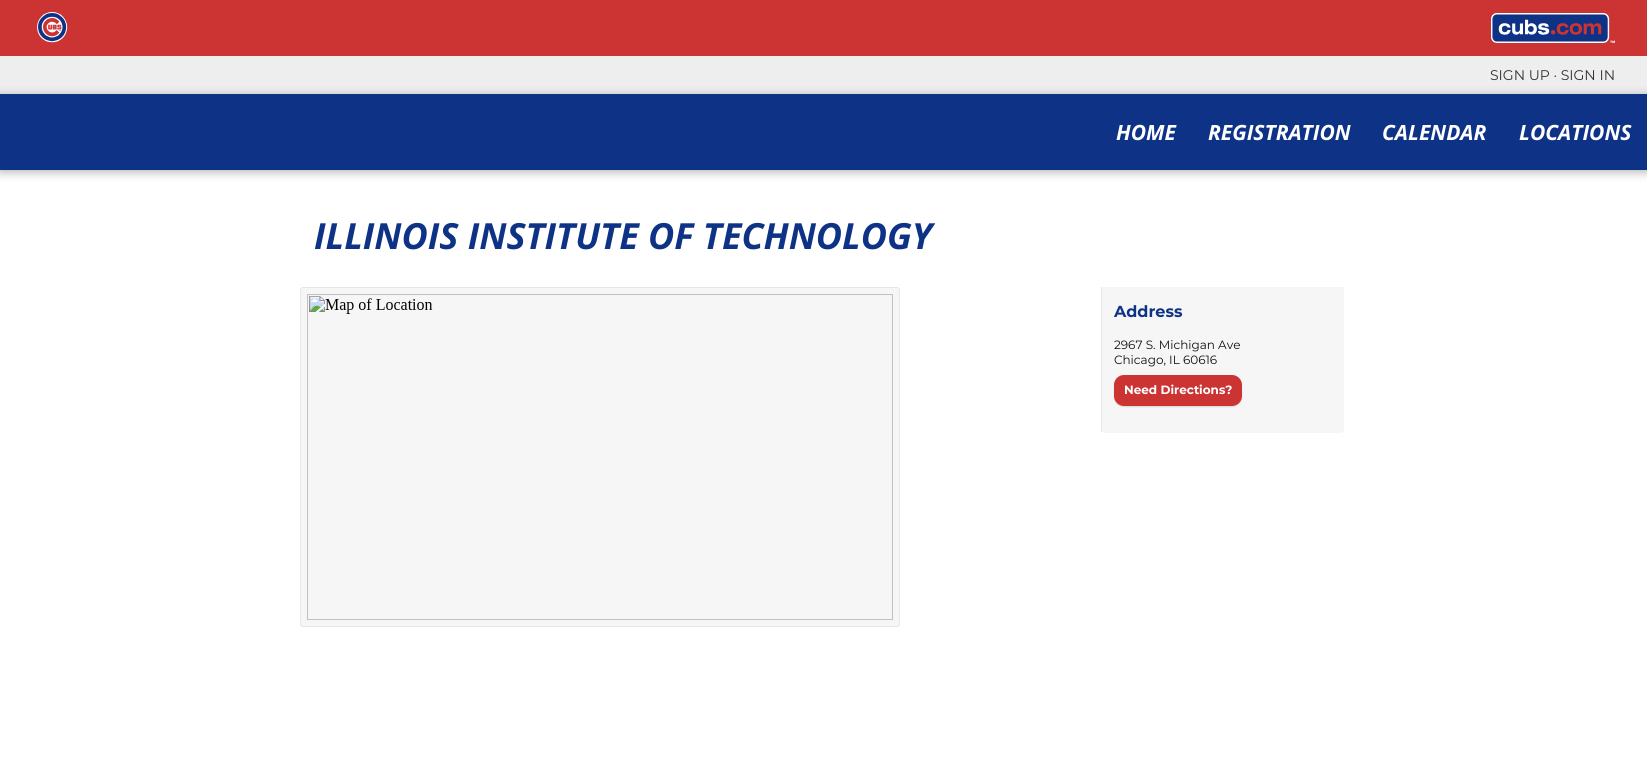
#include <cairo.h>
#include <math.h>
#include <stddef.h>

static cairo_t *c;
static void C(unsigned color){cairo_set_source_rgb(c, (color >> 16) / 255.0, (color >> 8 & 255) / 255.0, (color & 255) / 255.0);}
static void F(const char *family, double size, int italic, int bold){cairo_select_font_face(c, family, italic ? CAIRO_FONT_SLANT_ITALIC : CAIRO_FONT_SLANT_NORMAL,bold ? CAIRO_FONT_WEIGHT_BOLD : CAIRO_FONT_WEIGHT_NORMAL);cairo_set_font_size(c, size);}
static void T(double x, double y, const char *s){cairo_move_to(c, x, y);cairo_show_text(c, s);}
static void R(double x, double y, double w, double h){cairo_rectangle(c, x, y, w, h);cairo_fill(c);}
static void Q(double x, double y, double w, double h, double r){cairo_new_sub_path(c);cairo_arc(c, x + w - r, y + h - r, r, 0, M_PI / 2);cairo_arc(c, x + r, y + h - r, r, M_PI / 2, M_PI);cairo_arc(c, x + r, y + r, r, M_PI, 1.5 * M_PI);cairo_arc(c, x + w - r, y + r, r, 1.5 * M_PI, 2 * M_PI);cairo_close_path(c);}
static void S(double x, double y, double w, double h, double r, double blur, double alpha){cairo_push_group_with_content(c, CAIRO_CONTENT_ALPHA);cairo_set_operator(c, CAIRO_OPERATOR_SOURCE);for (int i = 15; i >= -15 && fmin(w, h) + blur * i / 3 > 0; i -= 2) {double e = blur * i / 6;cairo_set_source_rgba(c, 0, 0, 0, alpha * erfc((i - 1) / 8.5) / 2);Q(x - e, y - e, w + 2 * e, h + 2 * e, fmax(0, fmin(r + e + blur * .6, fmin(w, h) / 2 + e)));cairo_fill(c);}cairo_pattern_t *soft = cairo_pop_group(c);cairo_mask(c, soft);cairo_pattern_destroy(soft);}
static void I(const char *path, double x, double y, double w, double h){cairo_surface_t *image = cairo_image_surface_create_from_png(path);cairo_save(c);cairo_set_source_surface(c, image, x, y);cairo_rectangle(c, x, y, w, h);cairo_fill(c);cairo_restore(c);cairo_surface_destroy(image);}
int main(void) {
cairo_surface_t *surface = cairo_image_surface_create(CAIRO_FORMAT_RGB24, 1647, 770);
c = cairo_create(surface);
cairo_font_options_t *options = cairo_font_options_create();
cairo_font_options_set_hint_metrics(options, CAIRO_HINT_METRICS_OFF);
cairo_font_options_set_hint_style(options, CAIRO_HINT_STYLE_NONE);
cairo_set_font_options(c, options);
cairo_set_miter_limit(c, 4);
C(0xffffff);
cairo_paint(c);
I("1.png",0,0,1647,56);
C(0xeeeeee);
R(0,56,1647,38);
F("Montserrat",14,0,0);
C(0x333333);
T(1490,80,"SIGN UP · SIGN IN");
C(0x000000);
S(0,96,1647,76,0,5,.3);
C(0x0e3386);
R(0,94,1647,76);
F("Open Sans",21,1,1);
C(0xffffff);
T(1116,140,"HOME");
T(1208,140,"REGISTRATION");
T(1382,140,"CALENDAR");
T(1519,140,"LOCATIONS");
F("Open Sans",36,1,1);
C(0x0e3386);
T(314,249,"ILLINOIS INSTITUTE OF TECHNOLOGY");
C(0xf6f6f6);
Q(300,287,600,340,3);
cairo_fill(c);
Q(300.5,287.5,599,339,2.5);
cairo_set_source_rgba(c,0,0,0,0.07);
cairo_set_line_width(c,1);
cairo_stroke(c);
I("2.png",307,294,586,326);
C(0xf6f6f6);
cairo_new_path(c);
cairo_move_to(c,1101,287);
cairo_line_to(c,1344,287);
cairo_line_to(c,1344,430);
cairo_curve_to(c,1344,431.5,1342.5,433,1341,433);
cairo_line_to(c,1104,433);
cairo_curve_to(c,1102.5,433,1101,431.5,1101,430);
cairo_close_path(c);
cairo_fill(c);
cairo_set_source_rgba(c,0,0,0,0.07);
R(1101,287,1,145);
F("Montserrat",16,0,1);
C(0x0e3386);
T(1114,317,"Address");
F("Montserrat",12,0,0);
C(0x101010);
T(1114,349,"2967 S. Michigan Ave");
T(1114,364,"Chicago, IL 60616");
C(0x000000);
S(1114,376,128,31,10,.5,.12);
C(0xcc3433);
Q(1114,375,128,31,10);
cairo_fill(c);
F("Montserrat",12,0,1);
C(0xffffff);
T(1124,394,"Need Directions?");
cairo_surface_write_to_png(surface, "o.png");
cairo_font_options_destroy(options);
cairo_destroy(c);
cairo_surface_destroy(surface);
return 0;
}
